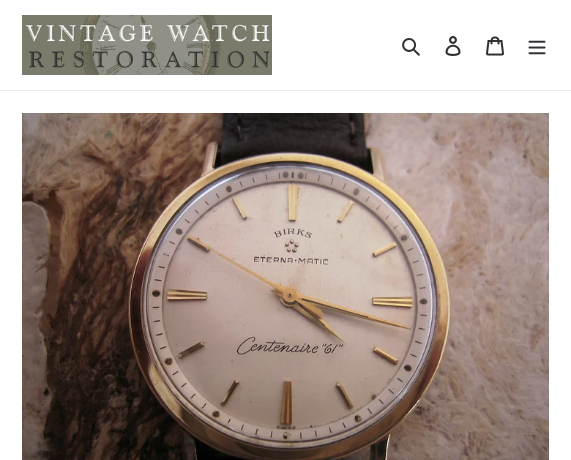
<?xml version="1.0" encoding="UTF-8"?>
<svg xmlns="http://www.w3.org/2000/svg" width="571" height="460">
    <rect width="100%" height="100%" fill="#FFFFFF"/>
    <rect x="0" y="90" width="571" height="1" fill="#EBEBEB"/>
    <image x="22" y="15" width="250" height="60" href="img_01.png"/>
    <image x="402" y="38" width="18" height="18" href="img_02.png"/>
    <image x="445" y="36" width="16" height="20" href="img_03.png"/>
    <image x="486" y="36" width="18" height="20" href="img_04.png"/>
    <image x="528" y="40" width="18" height="15" href="img_05.png"/>
    <image x="22" y="113" width="527" height="347" href="img_06.png"/>
</svg>
